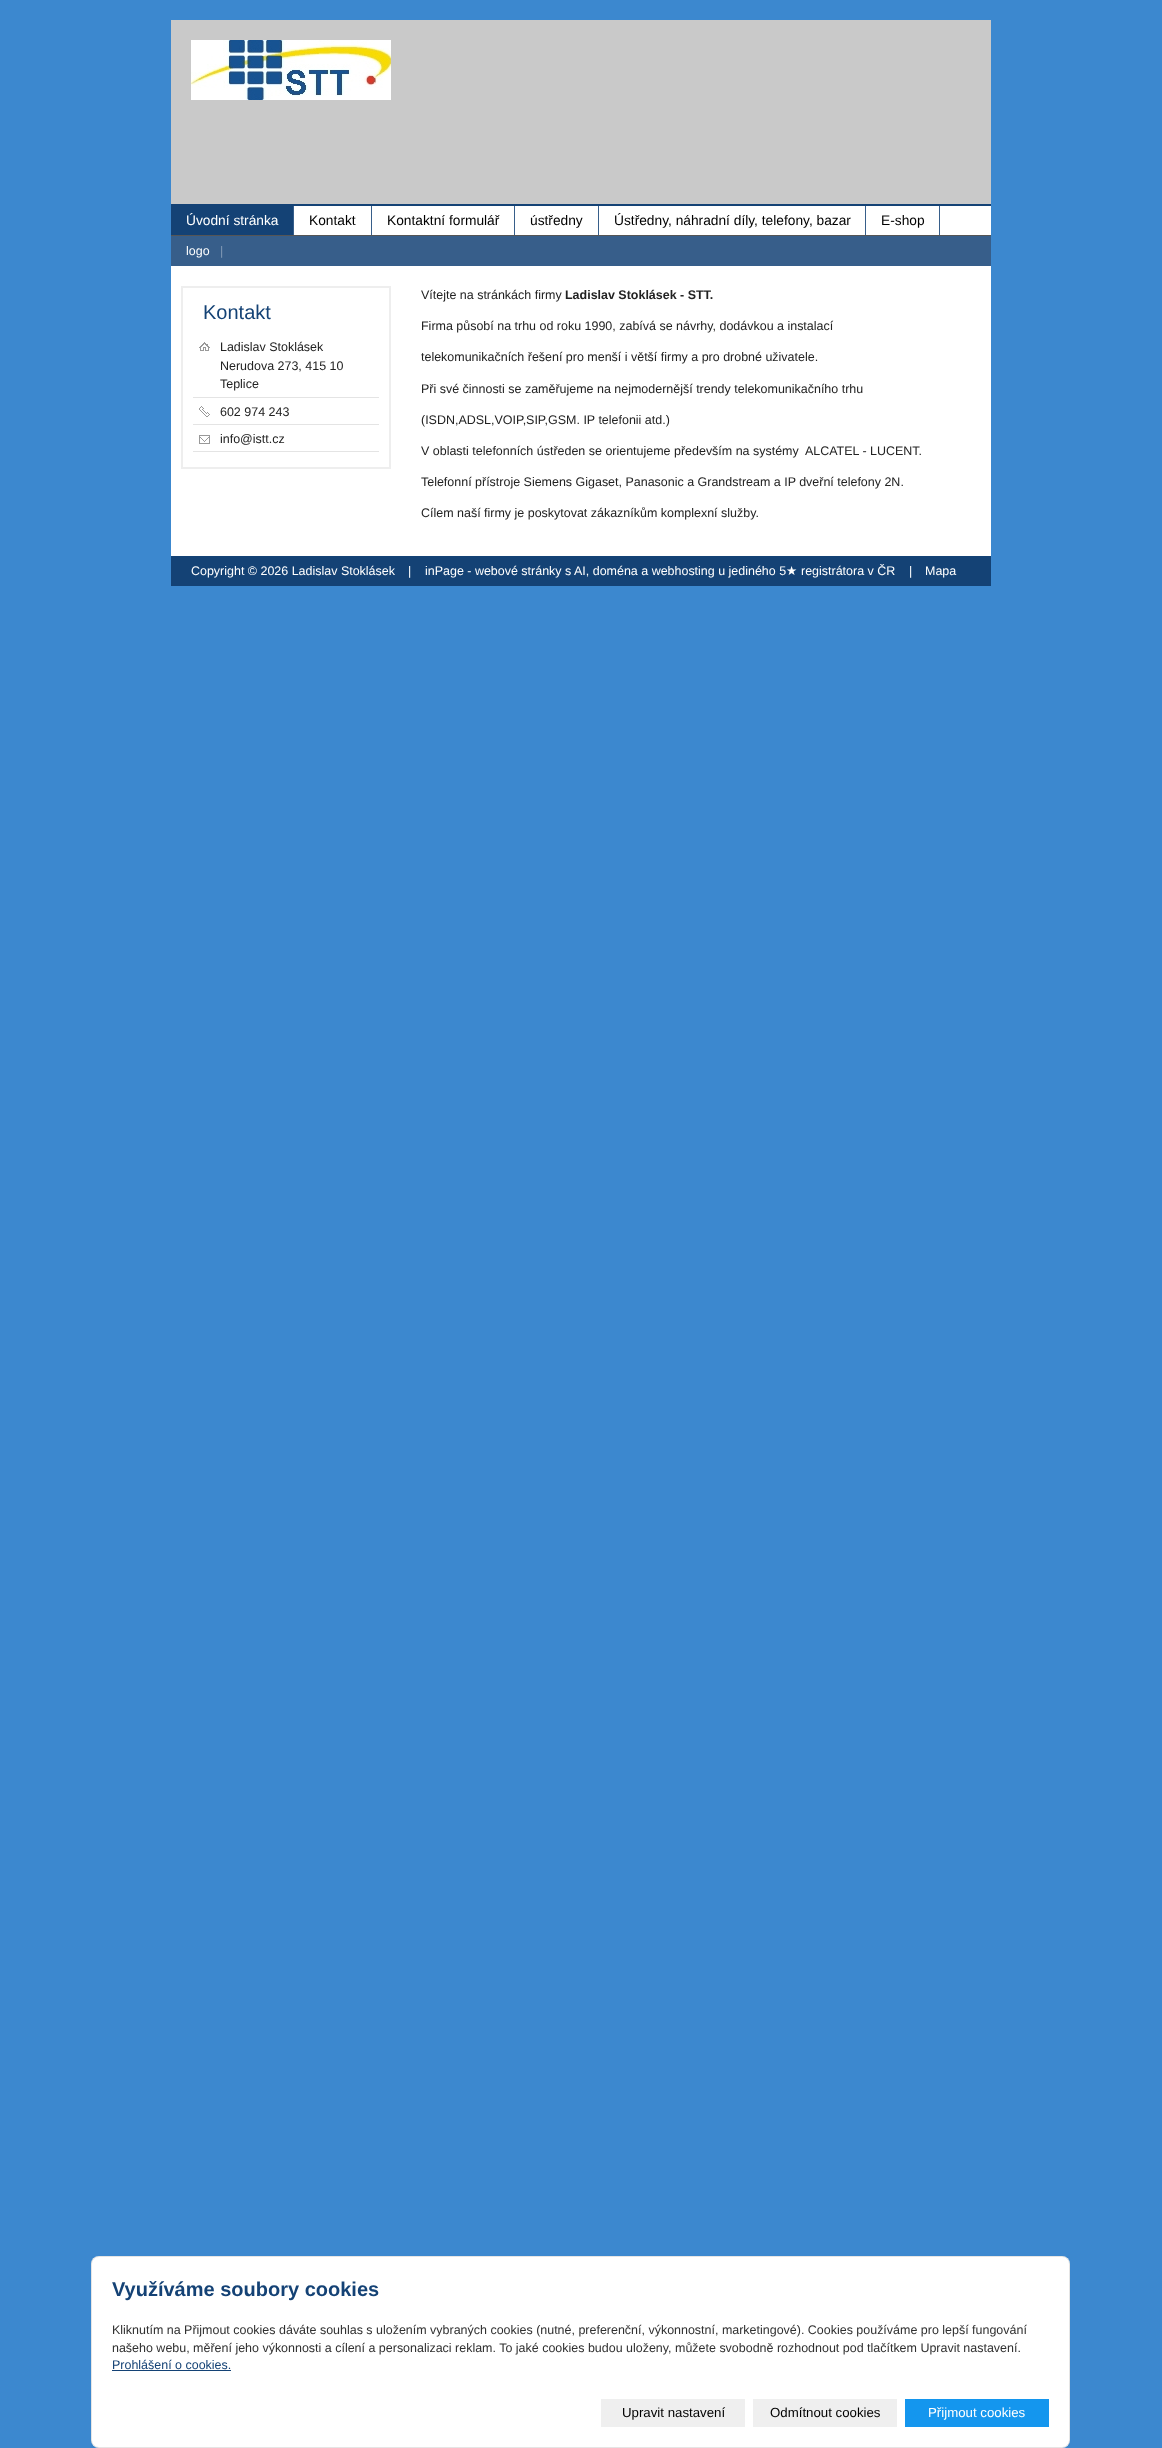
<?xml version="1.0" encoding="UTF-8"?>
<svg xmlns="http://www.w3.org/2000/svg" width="1162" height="2448">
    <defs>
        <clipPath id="clip1"><rect x="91" y="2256" width="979" height="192"/></clipPath>
        <filter id="blur1" x="-50%" y="-200%" width="200%" height="500%"><feGaussianBlur stdDeviation="10"/></filter>
    </defs>
    <rect width="100%" height="100%" fill="#3C88CF"/>
    <rect x="171" y="206" width="820" height="350" fill="#FFFFFF"/>
    <rect x="171" y="20" width="820" height="184" fill="#C9C9C9"/>
    <rect x="171" y="204" width="820" height="2" fill="#144275"/>
    <image x="191" y="40" width="200" height="60" href="img_01.png"/>
    <rect x="171" y="235" width="820" height="1" fill="#555555"/>
    <rect x="171" y="206" width="122" height="29" fill="#144275"/>
    <rect x="293" y="206" width="1" height="29" fill="#375E8A"/>
    <text x="186" y="225" font-family="Liberation Sans" font-size="13.75" fill="#FFFFFF">Úvodní stránka</text>
    <rect x="371" y="206" width="1" height="29" fill="#375E8A"/>
    <text x="309" y="225" font-family="Liberation Sans" font-size="13.75" fill="#000000">Kontakt</text>
    <rect x="514" y="206" width="1" height="29" fill="#375E8A"/>
    <text x="387" y="225" font-family="Liberation Sans" font-size="13.75" fill="#000000">Kontaktní formulář</text>
    <rect x="598" y="206" width="1" height="29" fill="#375E8A"/>
    <text x="530" y="225" font-family="Liberation Sans" font-size="13.75" fill="#000000">ústředny</text>
    <rect x="865" y="206" width="1" height="29" fill="#375E8A"/>
    <text x="614" y="225" font-family="Liberation Sans" font-size="13.75" fill="#000000">Ústředny, náhradní díly, telefony, bazar</text>
    <rect x="939" y="206" width="1" height="29" fill="#375E8A"/>
    <text x="881" y="225" font-family="Liberation Sans" font-size="13.75" fill="#000000">E-shop</text>
    <rect x="171" y="236" width="820" height="30" fill="#375E8A"/>
    <text x="186" y="255" font-family="Liberation Sans" font-size="12.48" fill="#FFFFFF">logo</text>
    <text x="220" y="255" font-family="Liberation Sans" font-size="12.48" fill="#8099B5">|</text>
    <rect x="182" y="287" width="208" height="181" fill="none" stroke="#EEEEEE" stroke-width="2"/>
    <text x="203" y="319" font-family="Liberation Sans" font-size="20" fill="#144275">Kontakt</text>
    <image x="199" y="342" width="11" height="9" href="img_02.png"/>
    <rect x="193" y="397" width="186" height="1" fill="#E4E4E4"/>
    <text font-family="Liberation Sans" font-size="12.48" fill="#222222">
        <tspan x="220" y="351">Ladislav Stoklásek</tspan>
        <tspan x="220" y="370">Nerudova 273, 415 10</tspan>
        <tspan x="220" y="388">Teplice</tspan>
    </text>
    <image x="199" y="406" width="11" height="11" href="img_03.png"/>
    <rect x="193" y="424" width="186" height="1" fill="#E4E4E4"/>
    <text x="220" y="416" font-family="Liberation Sans" font-size="12.48" fill="#222222">602 974 243</text>
    <image x="199" y="435" width="11" height="9" href="img_04.png"/>
    <rect x="193" y="451" width="186" height="1" fill="#E4E4E4"/>
    <text x="220" y="443" font-family="Liberation Sans" font-size="12.48" fill="#222222">info@istt.cz</text>
    <text x="421" y="299" font-family="Liberation Sans" font-size="12.48" fill="#222222">Vítejte na stránkách firmy</text>
    <text x="565" y="299" font-family="Liberation Sans" font-size="12.48" font-weight="700" fill="#222222">Ladislav Stoklásek - STT.</text>
    <text x="421" y="330" font-family="Liberation Sans" font-size="12.48" fill="#222222">Firma působí na trhu od roku 1990, zabívá se návrhy, dodávkou a instalací</text>
    <text x="421" y="361" font-family="Liberation Sans" font-size="12.48" fill="#222222">telekomunikačních řešení pro menší i větší firmy a pro drobné uživatele.</text>
    <text x="421" y="393" font-family="Liberation Sans" font-size="12.48" fill="#222222">Při své činnosti se zaměřujeme na nejmodernější trendy telekomunikačního trhu</text>
    <text x="421" y="424" font-family="Liberation Sans" font-size="12.48" fill="#222222">(ISDN,ADSL,VOIP,SIP,GSM. IP telefonii atd.)</text>
    <text x="421" y="455" font-family="Liberation Sans" font-size="12.48" fill="#222222" xml:space="preserve">V oblasti telefonních ústředen se orientujeme především na systémy  ALCATEL - LUCENT.</text>
    <text x="421" y="486" font-family="Liberation Sans" font-size="12.48" fill="#222222">Telefonní přístroje Siemens Gigaset, Panasonic a Grandstream a IP dveřní telefony 2N.</text>
    <text x="421" y="517" font-family="Liberation Sans" font-size="12.48" fill="#222222">Cílem naší firmy je poskytovat zákazníkům komplexní služby.</text>
    <rect x="171" y="556" width="820" height="30" fill="#144275"/>
    <text x="191" y="575" font-family="Liberation Sans" font-size="12.48" fill="#FFFFFF">Copyright © 2026 Ladislav Stoklásek</text>
    <text x="408" y="575" font-family="Liberation Sans" font-size="12.48" fill="#FFFFFF">|</text>
    <text x="425" y="575" font-family="Liberation Sans" font-size="12.48" fill="#FFFFFF">inPage - webové stránky s AI, doména a webhosting u jediného 5</text>
    <text x="786" y="575" font-family="DejaVu Sans" font-size="12.48" fill="#FFFFFF">★</text>
    <text x="801" y="575" font-family="Liberation Sans" font-size="12.48" fill="#FFFFFF">registrátora v ČR</text>
    <text x="909" y="575" font-family="Liberation Sans" font-size="12.48" fill="#FFFFFF">|</text>
    <text x="925" y="575" font-family="Liberation Sans" font-size="12.48" fill="#FFFFFF">Mapa</text>
    <g clip-path="url(#clip1)">
        <rect x="101" y="2268" width="959" height="172" fill="#000000" fill-opacity="0.5" filter="url(#blur1)"/>
    </g>
    <rect x="91" y="2256" width="979" height="192" rx="8" fill="#FFFFFF"/>
    <rect x="91.5" y="2256.5" width="978" height="191" rx="7.5" fill="none" stroke="#000000" stroke-opacity="0.1"/>
    <text x="112" y="2296" font-family="Liberation Sans" font-size="20" font-weight="700" fill="#144275">Využíváme soubory cookies</text>
    <text font-family="Liberation Sans" font-size="12.48" fill="#303030">
        <tspan x="112" y="2334">Kliknutím na Přijmout cookies dáváte souhlas s uložením vybraných cookies (nutné, preferenční, výkonnostní, marketingové). Cookies používáme pro lepší fungování</tspan>
        <tspan x="112" y="2352">našeho webu, měření jeho výkonnosti a cílení a personalizaci reklam. To jaké cookies budou uloženy, můžete svobodně rozhodnout pod tlačítkem Upravit nastavení.</tspan>
    </text>
    <text x="112" y="2369" font-family="Liberation Sans" font-size="12.48" fill="#144275">Prohlášení o cookies.</text>
    <rect x="112" y="2370" width="119" height="1" fill="#144275"/>
    <rect x="601" y="2399" width="144" height="28" fill="#EFEFEF"/>
    <text x="622" y="2417" font-family="Liberation Sans" font-size="13.25" fill="#000000">Upravit nastavení</text>
    <rect x="753" y="2399" width="144" height="28" fill="#EFEFEF"/>
    <text x="770" y="2417" font-family="Liberation Sans" font-size="13.25" fill="#000000">Odmítnout cookies</text>
    <rect x="905" y="2399" width="144" height="28" fill="#1496EE"/>
    <text x="928" y="2417" font-family="Liberation Sans" font-size="13.25" fill="#FFFFFF">Přijmout cookies</text>
</svg>
